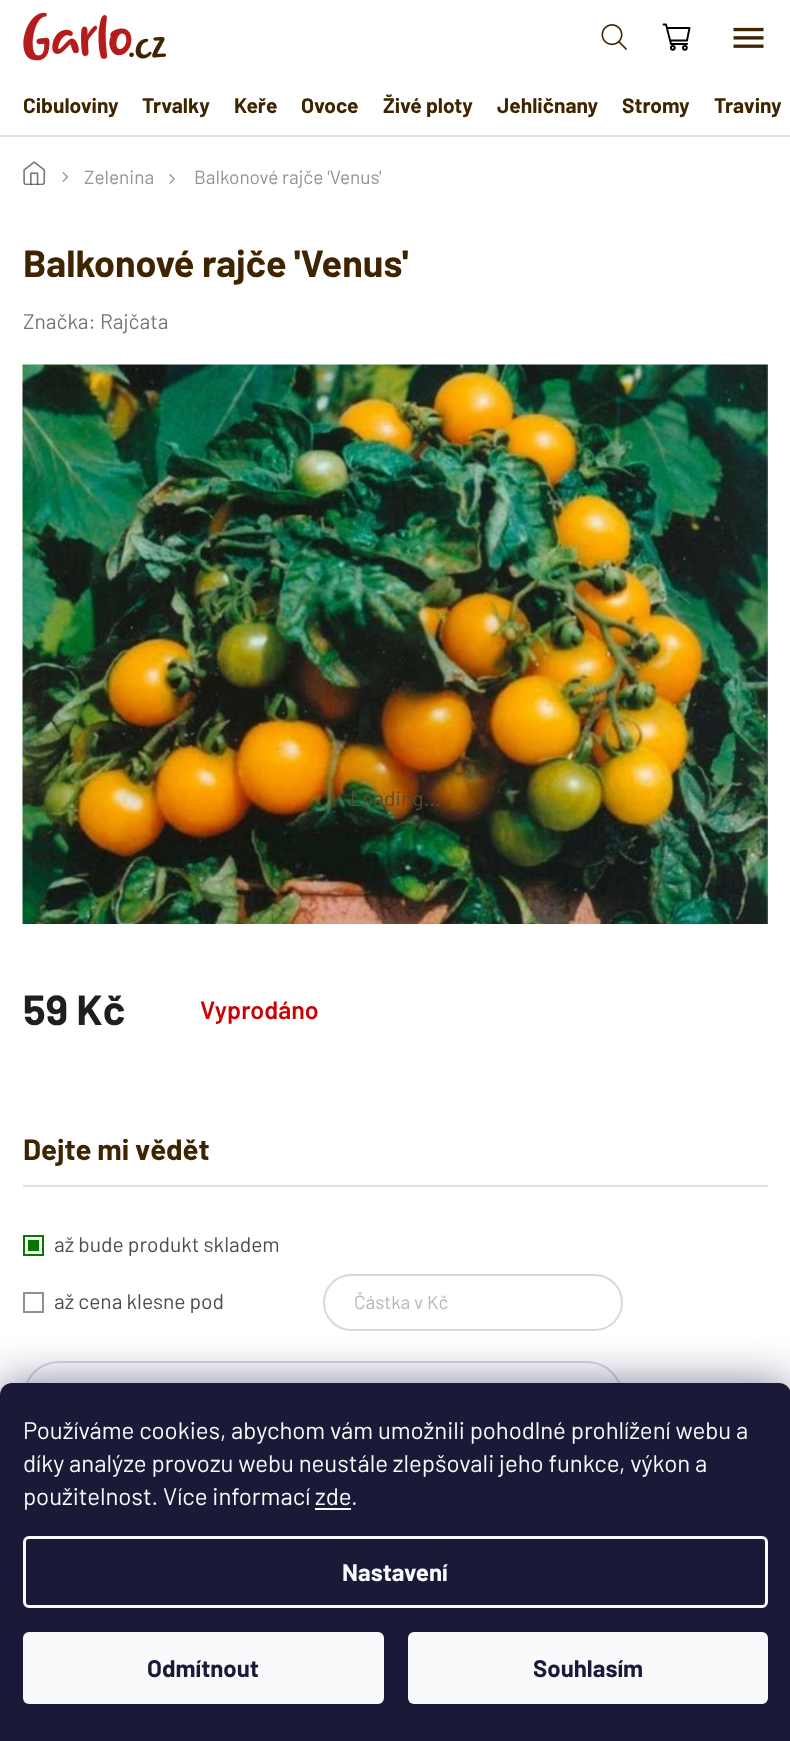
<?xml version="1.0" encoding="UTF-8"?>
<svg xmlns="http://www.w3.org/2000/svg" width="790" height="1741">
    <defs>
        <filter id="blur1" x="-50%" y="-200%" width="200%" height="500%"><feGaussianBlur stdDeviation="22.5"/></filter>
    </defs>
    <rect width="100%" height="100%" fill="#FFFFFF"/>
    <image x="23" y="12" width="143" height="49" href="img_01.png"/>
    <path d="M 667 28 H 689.5 L 687 40.5 H 670 M 687 44 H 671 L 666 24.5 H 663.5" fill="none" stroke="#000000" stroke-width="1.9" stroke-linecap="round" stroke-linejoin="round"/>
    <circle cx="684.9" cy="47.8" r="1.9" fill="none" stroke="#000000" stroke-width="1.9"/>
    <circle cx="672.8" cy="47.8" r="1.9" fill="none" stroke="#000000" stroke-width="1.9"/>
    <image x="601" y="24" width="26" height="26" href="img_02.png"/>
    <image x="733" y="27" width="31" height="21" href="img_03.png"/>
    <path d="M 0 135 V 137 H 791 V 77 H 790 V 135 Z" fill="#DFE1E2"/>
    <text x="23" y="113" font-family="Barlow" font-size="21" font-weight="700" fill="#3E2500">Cibuloviny</text>
    <text x="142" y="113" font-family="Barlow" font-size="21" font-weight="700" fill="#3E2500">Trvalky</text>
    <text x="234" y="113" font-family="Barlow" font-size="21" font-weight="700" fill="#3E2500">Keře</text>
    <text x="301" y="113" font-family="Barlow" font-size="21" font-weight="700" fill="#3E2500">Ovoce</text>
    <text x="383" y="113" font-family="Barlow" font-size="21" font-weight="700" fill="#3E2500">Živé ploty</text>
    <text x="497" y="113" font-family="Barlow" font-size="21" font-weight="700" fill="#3E2500">Jehličnany</text>
    <text x="622" y="113" font-family="Barlow" font-size="21" font-weight="700" fill="#3E2500">Stromy</text>
    <text x="714" y="113" font-family="Barlow" font-size="21" font-weight="700" fill="#3E2500">Traviny</text>
    <image x="23" y="161" width="23" height="24" href="img_04.png"/>
    <image x="62" y="172" width="6" height="10" href="img_05.png"/>
    <text x="84" y="184" font-family="Barlow" font-size="19" fill="#939393">Zelenina</text>
    <image x="169" y="174" width="6" height="10" href="img_06.png"/>
    <text x="194" y="184" font-family="Barlow" font-size="19" fill="#939393">Balkonové rajče 'Venus'</text>
    <text x="23" y="277" font-family="Barlow" font-size="37.75" font-weight="700" fill="#3E2500">Balkonové rajče 'Venus'</text>
    <text x="23" y="329" font-family="Barlow" font-size="21" fill="#767676">Značka: Rajčata</text>
    <image x="22" y="364" width="746" height="560" href="img_07.png"/>
    <text x="350" y="806" font-family="Barlow" font-size="21" fill="#544D32">Loading...</text>
    <text x="23" y="1025" font-family="Barlow" font-size="42" font-weight="700" fill="#1F1F1F">59 Kč</text>
    <text x="200" y="1019" font-family="Barlow" font-size="25" font-weight="600" fill="#CB0000">Vyprodáno</text>
    <rect x="23" y="1185" width="745" height="2" fill="#E1E1E1"/>
    <text x="23" y="1160" font-family="Barlow" font-size="29.25" font-weight="700" fill="#3E2500">Dejte mi vědět</text>
    <rect x="24" y="1236" width="19" height="19" fill="none" stroke="#027900" stroke-width="2"/>
    <text x="54" y="1252" font-family="Barlow" font-size="21" fill="#4D4D4D">až bude produkt skladem</text>
    <rect x="28" y="1240" width="11" height="11" fill="#027900"/>
    <rect x="24" y="1293" width="19" height="19" fill="none" stroke="#919191" stroke-width="2"/>
    <text x="54" y="1309" font-family="Barlow" font-size="21" fill="#4D4D4D">až cena klesne pod</text>
    <rect x="324" y="1275" width="298" height="55" rx="27.5" fill="none" stroke="#D6DADC" stroke-width="2"/>
    <text x="354" y="1309" font-family="Barlow" font-size="19" fill="#B6B6B6">Částka v Kč</text>
    <rect x="24" y="1362" width="598" height="70" rx="35" fill="none" stroke="#D6DADC" stroke-width="2"/>
    <rect x="0" y="1383" width="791" height="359" rx="12" fill="#1B1939" fill-opacity="0.5" filter="url(#blur1)"/>
    <path d="M 12 1383 H 779 C 785.5 1383 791 1388.5 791 1395 V 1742 H 0 V 1395 C 0 1388.5 5.5 1383 12 1383 Z" fill="#1A1937"/>
    <text font-family="Barlow" font-size="24" fill="#F8FAFB">
        <tspan x="23" y="1439">Používáme cookies, abychom vám umožnili pohodlné prohlížení webu a</tspan>
        <tspan x="23" y="1472">díky analýze provozu webu neustále zlepšovali jeho funkce, výkon a</tspan>
        <tspan x="23" y="1505">použitelnost. Více informací zde</tspan>
    </text>
    <text x="351" y="1505" font-family="Barlow" font-size="24" fill="#F8FAFB">.</text>
    <rect x="315" y="1508" width="36" height="2" fill="#F8FAFB"/>
    <rect x="24.5" y="1537.5" width="742" height="69" rx="4.5" fill="none" stroke="#F8FAFB" stroke-width="3"/>
    <text x="342" y="1581" font-family="Barlow" font-size="24" font-weight="700" fill="#F8FAFB">Nastavení</text>
    <rect x="23" y="1632" width="361" height="72" rx="6" fill="#F8FAFB"/>
    <text x="147" y="1677" font-family="Barlow" font-size="24" font-weight="700" fill="#1A1937">Odmítnout</text>
    <rect x="408" y="1632" width="360" height="72" rx="6" fill="#F8FAFB"/>
    <text x="533" y="1677" font-family="Barlow" font-size="24" font-weight="700" fill="#1A1937">Souhlasím</text>
</svg>
